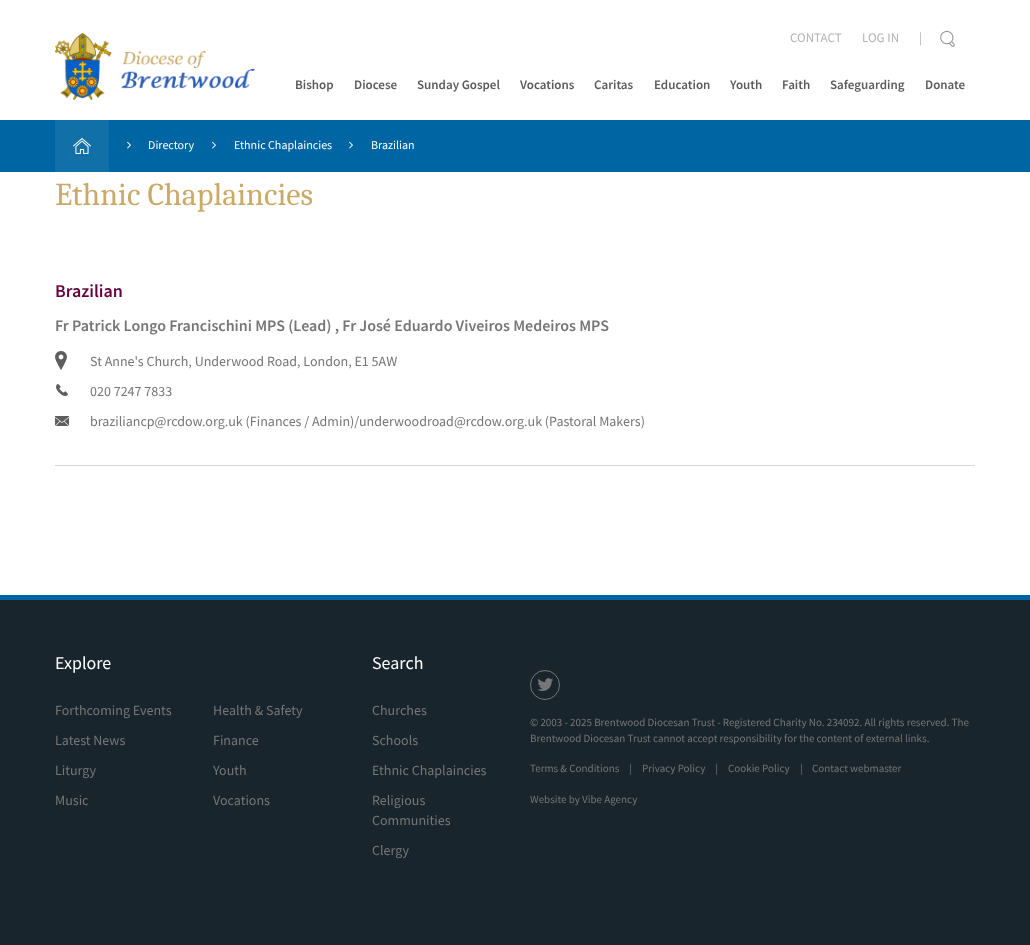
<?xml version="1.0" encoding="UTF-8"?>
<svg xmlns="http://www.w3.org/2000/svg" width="1030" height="945">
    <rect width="100%" height="100%" fill="#FFFFFF"/>
    <image x="55" y="33" width="200" height="67" href="img_01.png"/>
    <text x="790" y="42" font-family="Source Sans Pro" font-size="13" fill="#B4B4B4">CONTACT</text>
    <text x="862" y="42" font-family="Source Sans Pro" font-size="13" fill="#B4B4B4">LOG IN</text>
    <text x="919" y="42" font-family="Source Sans Pro" font-size="13" fill="#B4B4B4">|</text>
    <image x="940" y="31" width="15" height="16" href="img_02.png"/>
    <text x="295" y="89" font-family="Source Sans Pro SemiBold" font-size="13" font-weight="600" fill="#5B5B5B">Bishop</text>
    <text x="354" y="89" font-family="Source Sans Pro SemiBold" font-size="13" font-weight="600" fill="#5B5B5B">Diocese</text>
    <text x="417" y="89" font-family="Source Sans Pro SemiBold" font-size="13" font-weight="600" fill="#5B5B5B">Sunday Gospel</text>
    <text x="520" y="89" font-family="Source Sans Pro SemiBold" font-size="13" font-weight="600" fill="#5B5B5B">Vocations</text>
    <text x="594" y="89" font-family="Source Sans Pro SemiBold" font-size="13" font-weight="600" fill="#5B5B5B">Caritas</text>
    <text x="654" y="89" font-family="Source Sans Pro SemiBold" font-size="13" font-weight="600" fill="#5B5B5B">Education</text>
    <text x="730" y="89" font-family="Source Sans Pro SemiBold" font-size="13" font-weight="600" fill="#5B5B5B">Youth</text>
    <text x="782" y="89" font-family="Source Sans Pro SemiBold" font-size="13" font-weight="600" fill="#5B5B5B">Faith</text>
    <text x="830" y="89" font-family="Source Sans Pro SemiBold" font-size="13" font-weight="600" fill="#5B5B5B">Safeguarding</text>
    <text x="925" y="89" font-family="Source Sans Pro SemiBold" font-size="13" font-weight="600" fill="#5B5B5B">Donate</text>
    <rect x="0" y="120" width="1030" height="52" fill="#0065A3"/>
    <rect x="55" y="120" width="54" height="52" fill="#1270A9"/>
    <image x="73" y="138" width="18" height="16" href="img_03.png"/>
    <image x="127" y="141" width="4" height="8" href="img_04.png"/>
    <text x="148" y="149" font-family="Source Sans Pro" font-size="12" fill="#FFFFFF">Directory</text>
    <image x="212" y="141" width="4" height="8" href="img_04.png"/>
    <text x="234" y="149" font-family="Source Sans Pro" font-size="12" fill="#FFFFFF">Ethnic Chaplaincies</text>
    <image x="349" y="141" width="4" height="8" href="img_04.png"/>
    <text x="371" y="149" font-family="Source Sans Pro" font-size="12" fill="#FFFFFF">Brazilian</text>
    <text x="55" y="205" font-family="Caladea" font-size="32" fill="#CBAA68">Ethnic Chaplaincies</text>
    <rect x="55" y="465" width="920" height="1" fill="#D6D6D6"/>
    <text x="55" y="297" font-family="Source Sans Pro SemiBold" font-size="18" font-weight="600" fill="#68003E">Brazilian</text>
    <text x="55" y="331" font-family="Source Sans Pro SemiBold" font-size="16" font-weight="600" fill="#767676">Fr Patrick Longo Francischini MPS (Lead) , Fr José Eduardo Viveiros Medeiros MPS</text>
    <image x="55" y="351" width="12" height="19" href="img_05.png"/>
    <text x="90" y="366" font-family="Source Sans Pro" font-size="14" fill="#767676">St Anne's Church, Underwood Road, London, E1 5AW</text>
    <image x="56" y="384" width="12" height="12" href="img_06.png"/>
    <text x="90" y="396" font-family="Source Sans Pro" font-size="14" fill="#767676">020 7247 7833</text>
    <image x="55" y="416" width="14" height="10" href="img_07.png"/>
    <text x="90" y="426" font-family="Source Sans Pro" font-size="14" fill="#767676">braziliancp@rcdow.org.uk (Finances / Admin)/underwoodroad@rcdow.org.uk (Pastoral Makers)</text>
    <rect x="0" y="600" width="1030" height="345" fill="#19252C"/>
    <rect x="0" y="595" width="1030" height="5" fill="#0065A3"/>
    <text x="55" y="669" font-family="Source Sans Pro" font-size="18" fill="#FFFFFF">Explore</text>
    <text x="55" y="715" font-family="Source Sans Pro" font-size="14" fill="#767676">Forthcoming Events</text>
    <text x="55" y="745" font-family="Source Sans Pro" font-size="14" fill="#767676">Latest News</text>
    <text x="55" y="775" font-family="Source Sans Pro" font-size="14" fill="#767676">Liturgy</text>
    <text x="55" y="805" font-family="Source Sans Pro" font-size="14" fill="#767676">Music</text>
    <text x="213" y="715" font-family="Source Sans Pro" font-size="14" fill="#767676">Health &amp; Safety</text>
    <text x="213" y="745" font-family="Source Sans Pro" font-size="14" fill="#767676">Finance</text>
    <text x="213" y="775" font-family="Source Sans Pro" font-size="14" fill="#767676">Youth</text>
    <text x="213" y="805" font-family="Source Sans Pro" font-size="14" fill="#767676">Vocations</text>
    <text x="372" y="669" font-family="Source Sans Pro" font-size="18" fill="#FFFFFF">Search</text>
    <text x="372" y="715" font-family="Source Sans Pro" font-size="14" fill="#767676">Churches</text>
    <text x="372" y="745" font-family="Source Sans Pro" font-size="14" fill="#767676">Schools</text>
    <text x="372" y="775" font-family="Source Sans Pro" font-size="14" fill="#767676">Ethnic Chaplaincies</text>
    <text font-family="Source Sans Pro" font-size="14" fill="#767676">
        <tspan x="372" y="805">Religious</tspan>
        <tspan x="372" y="825">Communities</tspan>
    </text>
    <text x="372" y="855" font-family="Source Sans Pro" font-size="14" fill="#767676">Clergy</text>
    <circle cx="545" cy="685" r="14.5" fill="none" stroke="#767676"/>
    <image x="537" y="678" width="16" height="13" href="img_08.png"/>
    <text font-family="Source Sans Pro" font-size="11" fill="#767676">
        <tspan x="530" y="726">© 2003 - 2025 Brentwood Diocesan Trust - Registered Charity No. 234092. All rights reserved. The</tspan>
        <tspan x="530" y="742">Brentwood Diocesan Trust cannot accept responsibility for the content of external links.</tspan>
    </text>
    <text x="530" y="772" font-family="Source Sans Pro" font-size="11" fill="#767676">Terms &amp; Conditions</text>
    <text x="629" y="772" font-family="Source Sans Pro" font-size="11" fill="#767676">|</text>
    <text x="642" y="772" font-family="Source Sans Pro" font-size="11" fill="#767676">Privacy Policy</text>
    <text x="715" y="772" font-family="Source Sans Pro" font-size="11" fill="#767676">|</text>
    <text x="728" y="772" font-family="Source Sans Pro" font-size="11" fill="#767676">Cookie Policy</text>
    <text x="800" y="772" font-family="Source Sans Pro" font-size="11" fill="#767676">|</text>
    <text x="812" y="772" font-family="Source Sans Pro" font-size="11" fill="#767676">Contact webmaster</text>
    <text x="530" y="803" font-family="Source Sans Pro" font-size="11" fill="#767676">Website by Vibe Agency</text>
</svg>
